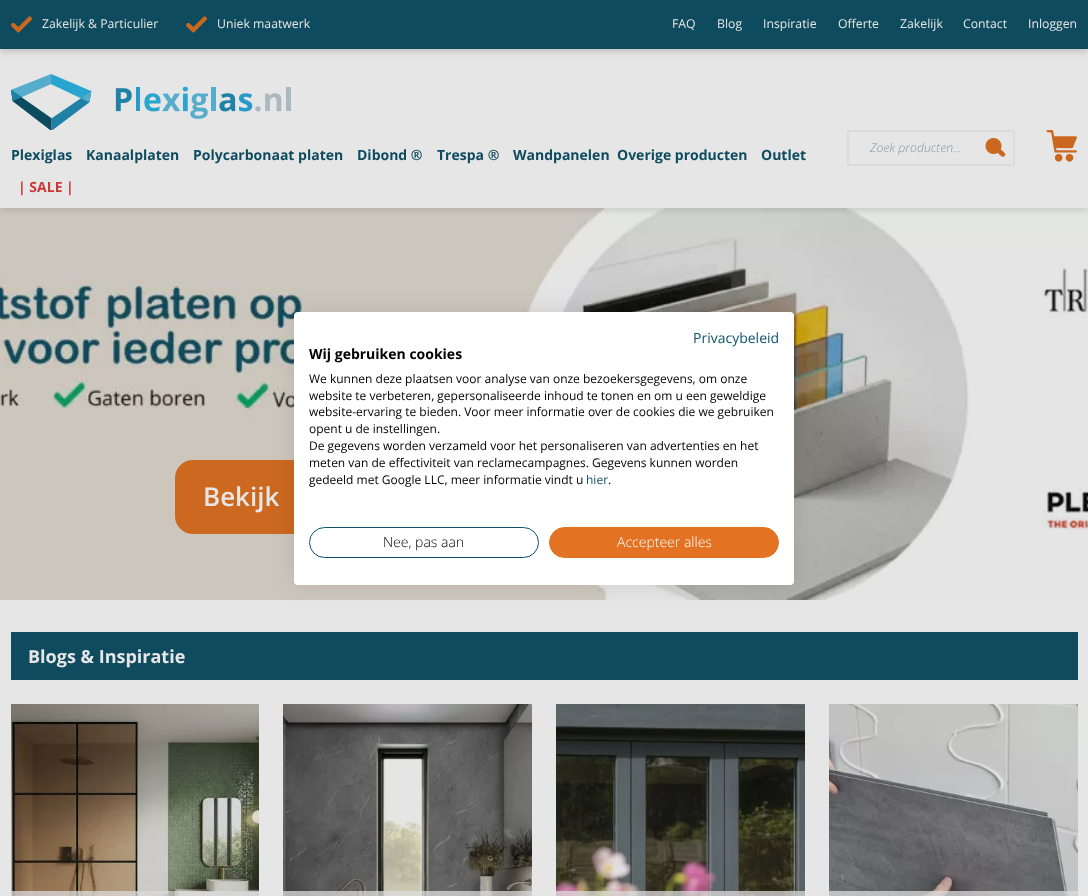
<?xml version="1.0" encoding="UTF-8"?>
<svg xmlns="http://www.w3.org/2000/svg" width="1088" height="896">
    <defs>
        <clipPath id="clip1"><rect x="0" y="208" width="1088" height="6"/></clipPath>
        <filter id="blur1" x="-50%" y="-200%" width="200%" height="500%"><feGaussianBlur stdDeviation="3"/></filter>
        <filter id="blur2" x="-50%" y="-200%" width="200%" height="500%"><feGaussianBlur stdDeviation="12"/></filter>
    </defs>
    <rect width="100%" height="100%" fill="#E6E6E6"/>
    <image x="0" y="208" width="1088" height="392" href="img_05.png"/>
    <g clip-path="url(#clip1)">
        <rect x="1" y="5" width="1086" height="206" fill="#000000" fill-opacity="0.1" filter="url(#blur1)"/>
    </g>
    <rect x="0" y="3" width="1088" height="49" fill="#000000" fill-opacity="0.16" filter="url(#blur1)"/>
    <rect x="0" y="0" width="1088" height="49" fill="#0E4B5F"/>
    <image x="11" y="16" width="21" height="17" href="img_01.png"/>
    <text x="42" y="28" font-family="Open Sans" font-size="12.25" fill="#E6E6E6">Zakelijk &amp; Particulier</text>
    <image x="186" y="16" width="21" height="17" href="img_01.png"/>
    <text x="217" y="28" font-family="Open Sans" font-size="12.25" fill="#E6E6E6">Uniek maatwerk</text>
    <text x="672" y="28" font-family="Open Sans" font-size="12.25" fill="#E6E6E6">FAQ</text>
    <text x="717" y="28" font-family="Open Sans" font-size="12.25" fill="#E6E6E6">Blog</text>
    <text x="763" y="28" font-family="Open Sans" font-size="12.25" fill="#E6E6E6">Inspiratie</text>
    <text x="838" y="28" font-family="Open Sans" font-size="12.25" fill="#E6E6E6">Offerte</text>
    <text x="900" y="28" font-family="Open Sans" font-size="12.25" fill="#E6E6E6">Zakelijk</text>
    <text x="963" y="28" font-family="Open Sans" font-size="12.25" fill="#E6E6E6">Contact</text>
    <text x="1028" y="28" font-family="Open Sans" font-size="12.25" fill="#E6E6E6">Inloggen</text>
    <image x="11" y="74" width="280" height="56" href="img_02.png"/>
    <text x="11" y="160" font-family="Open Sans" font-size="14" font-weight="700" fill="#0E4B5F">Plexiglas</text>
    <text x="86" y="160" font-family="Open Sans" font-size="14" font-weight="700" fill="#0E4B5F">Kanaalplaten</text>
    <text x="193" y="160" font-family="Open Sans" font-size="14" font-weight="700" fill="#0E4B5F">Polycarbonaat platen</text>
    <text x="357" y="160" font-family="Open Sans" font-size="14" font-weight="700" fill="#0E4B5F">Dibond ®</text>
    <text x="437" y="160" font-family="Open Sans" font-size="14" font-weight="700" fill="#0E4B5F">Trespa ®</text>
    <text x="513" y="160" font-family="Open Sans" font-size="14" font-weight="700" fill="#0E4B5F">Wandpanelen</text>
    <text x="617" y="160" font-family="Open Sans" font-size="14" font-weight="700" fill="#0E4B5F">Overige producten</text>
    <text x="761" y="160" font-family="Open Sans" font-size="14" font-weight="700" fill="#0E4B5F">Outlet</text>
    <text x="18" y="192" font-family="Open Sans" font-size="14" font-weight="700" fill="#C73A3A">| SALE |</text>
    <rect x="848" y="131" width="166" height="34" rx="1.5" fill="none" stroke="#DBDBDB" stroke-width="2"/>
    <text x="870" y="152" font-family="Open Sans" font-size="12.25" font-weight="300" font-style="italic" fill="#8C939E">Zoek producten…</text>
    <image x="985" y="138" width="21" height="19" href="img_03.png"/>
    <image x="1046" y="130" width="31" height="32" href="img_04.png"/>
    <rect x="175" y="460" width="315" height="74" rx="18" fill="#CC6820"/>
    <text x="203" y="506" font-family="Open Sans" font-size="26" font-weight="600" fill="#E6E6E6">Bekijk</text>
    <rect x="294" y="312" width="500" height="273" rx="4" fill="#000000" fill-opacity="0.1" filter="url(#blur2)"/>
    <rect x="294" y="312" width="500" height="273" rx="4" fill="#FFFFFF"/>
    <text x="693" y="343" font-family="Open Sans" font-size="14" fill="#0F536A">Privacybeleid</text>
    <text x="309" y="359" font-family="Open Sans" font-size="14" font-weight="700" fill="#000000">Wij gebruiken cookies</text>
    <text font-family="Open Sans" font-size="12" fill="#000000">
        <tspan x="309" y="383">We kunnen deze plaatsen voor analyse van onze bezoekersgegevens, om onze</tspan>
        <tspan x="309" y="400">website te verbeteren, gepersonaliseerde inhoud te tonen en om u een geweldige</tspan>
        <tspan x="309" y="416">website-ervaring te bieden. Voor meer informatie over de cookies die we gebruiken</tspan>
        <tspan x="309" y="433">opent u de instellingen.</tspan>
        <tspan x="309" y="450">De gegevens worden verzameld voor het personaliseren van advertenties en het</tspan>
        <tspan x="309" y="467">meten van de effectiviteit van reclamecampagnes. Gegevens kunnen worden</tspan>
        <tspan x="309" y="484">gedeeld met Google LLC, meer informatie vindt u</tspan>
    </text>
    <text x="586" y="484" font-family="Open Sans" font-size="12" fill="#0F536A">hier</text>
    <text x="608" y="484" font-family="Open Sans" font-size="12" fill="#000000">.</text>
    <rect x="309.5" y="527.5" width="229" height="30" rx="15" fill="none" stroke="#0F536A"/>
    <text x="383" y="547" font-family="Open Sans" font-size="14" font-weight="300" fill="#000000">Nee, pas aan</text>
    <rect x="549.5" y="527.5" width="229" height="30" rx="15" fill="#E37323" stroke="#E37323"/>
    <text x="617" y="547" font-family="Open Sans" font-size="14" font-weight="300" fill="#FFFFFF">Accepteer alles</text>
    <rect x="11" y="632" width="1067" height="48" fill="#0E4B5F"/>
    <text x="28" y="663" font-family="Open Sans" font-size="18" font-weight="700" fill="#E6E6E6">Blogs &amp; Inspiratie</text>
    <image x="11" y="704" width="248" height="192" href="img_06.png"/>
    <rect x="11" y="891" width="248" height="5" fill="#DBDBDB" fill-opacity="0.75"/>
    <image x="283" y="704" width="249" height="192" href="img_07.png"/>
    <rect x="283" y="891" width="249" height="5" fill="#DBDBDB" fill-opacity="0.75"/>
    <image x="556" y="704" width="249" height="192" href="img_08.png"/>
    <rect x="556" y="891" width="249" height="5" fill="#DBDBDB" fill-opacity="0.75"/>
    <image x="829" y="704" width="249" height="192" href="img_09.png"/>
    <rect x="829" y="891" width="249" height="5" fill="#DBDBDB" fill-opacity="0.75"/>
</svg>
